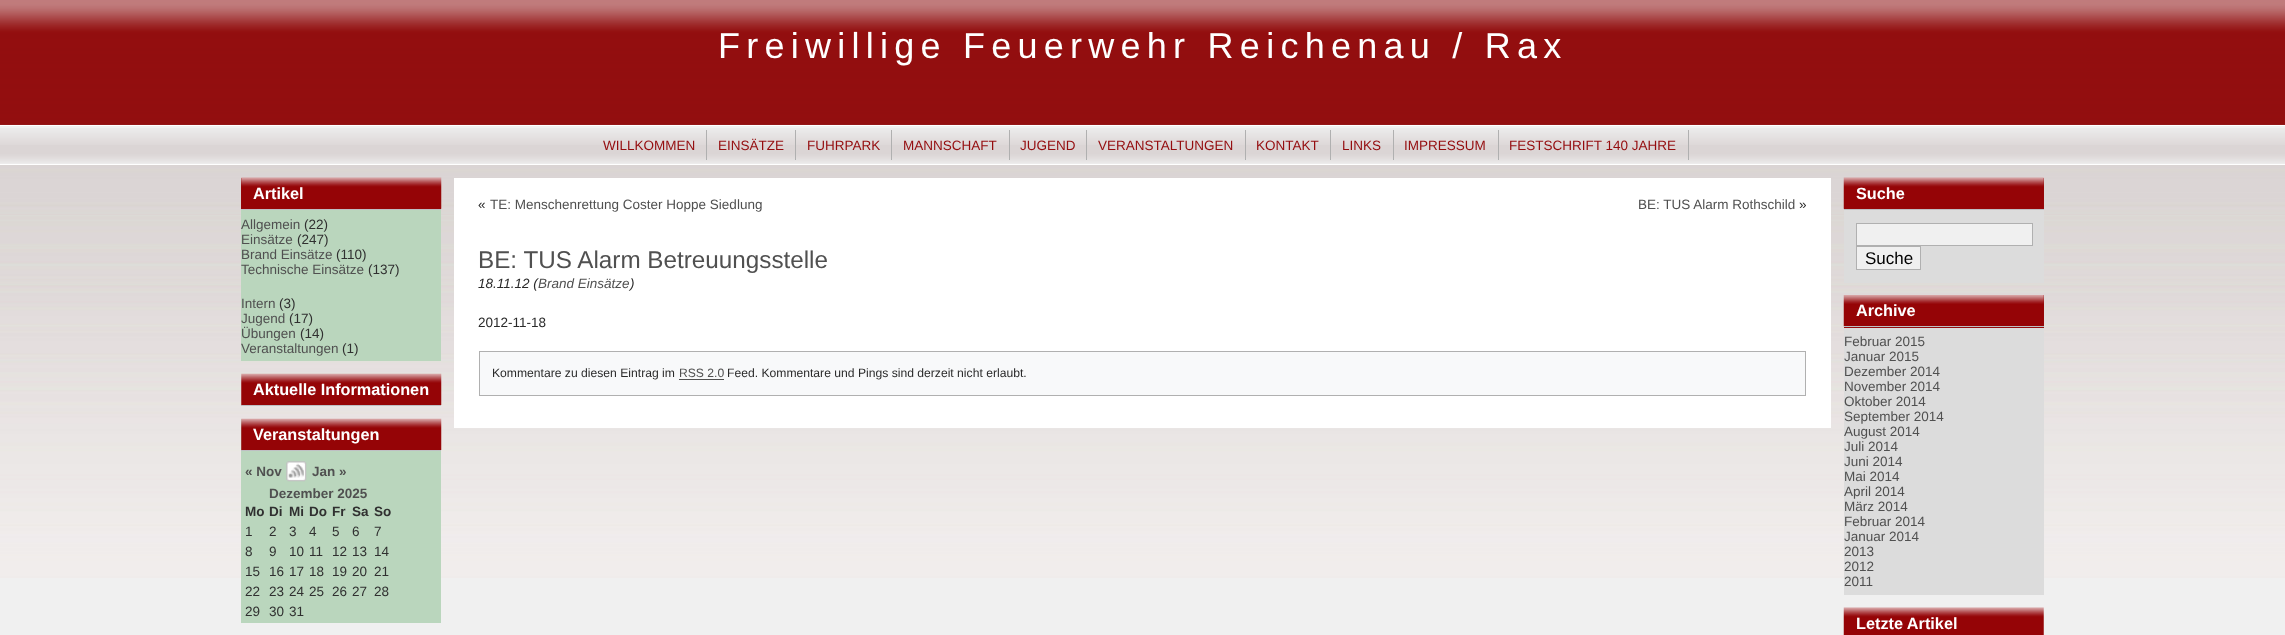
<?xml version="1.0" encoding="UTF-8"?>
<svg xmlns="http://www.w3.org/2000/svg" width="2285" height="635">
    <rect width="100%" height="100%" fill="#F0F0F0"/>
    <image x="0" y="0" width="2285" height="578" href="img_01.png"/>
    <text x="718" y="58" font-family="Liberation Sans" font-size="36" letter-spacing="6.25" fill="#FFFFFF">Freiwillige Feuerwehr Reichenau / Rax</text>
    <rect x="0" y="126" width="2285" height="38" fill="#F0F0F0"/>
    <image x="0" y="128" width="2285" height="36" href="img_02.png"/>
    <rect x="0" y="125" width="2285" height="1" fill="#FFFFFF"/>
    <rect x="0" y="164" width="2285" height="1" fill="#FFFFFF"/>
    <text x="603" y="150" font-family="Liberation Sans" font-size="13.5" fill="#940C0E">WILLKOMMEN</text>
    <rect x="706" y="130" width="1" height="30" fill="#B0B0B0"/>
    <text x="718" y="150" font-family="Liberation Sans" font-size="13.5" fill="#940C0E">EINSÄTZE</text>
    <rect x="795" y="130" width="1" height="30" fill="#B0B0B0"/>
    <text x="807" y="150" font-family="Liberation Sans" font-size="13.5" fill="#940C0E">FUHRPARK</text>
    <rect x="891" y="130" width="1" height="30" fill="#B0B0B0"/>
    <text x="903" y="150" font-family="Liberation Sans" font-size="13.5" fill="#940C0E">MANNSCHAFT</text>
    <rect x="1009" y="130" width="1" height="30" fill="#B0B0B0"/>
    <text x="1020" y="150" font-family="Liberation Sans" font-size="13.5" fill="#940C0E">JUGEND</text>
    <rect x="1086" y="130" width="1" height="30" fill="#B0B0B0"/>
    <text x="1098" y="150" font-family="Liberation Sans" font-size="13.5" fill="#940C0E">VERANSTALTUNGEN</text>
    <rect x="1245" y="130" width="1" height="30" fill="#B0B0B0"/>
    <text x="1256" y="150" font-family="Liberation Sans" font-size="13.5" fill="#940C0E">KONTAKT</text>
    <rect x="1330" y="130" width="1" height="30" fill="#B0B0B0"/>
    <text x="1342" y="150" font-family="Liberation Sans" font-size="13.5" fill="#940C0E">LINKS</text>
    <rect x="1393" y="130" width="1" height="30" fill="#B0B0B0"/>
    <text x="1404" y="150" font-family="Liberation Sans" font-size="13.5" fill="#940C0E">IMPRESSUM</text>
    <rect x="1498" y="130" width="1" height="30" fill="#B0B0B0"/>
    <text x="1509" y="150" font-family="Liberation Sans" font-size="13.5" fill="#940C0E">FESTSCHRIFT 140 JAHRE</text>
    <rect x="1688" y="130" width="1" height="30" fill="#B0B0B0"/>
    <rect x="241" y="210" width="200" height="151" fill="#BAD6BD"/>
    <rect x="241" y="178" width="200" height="31" fill="#940C0E"/>
    <image x="241" y="177" width="201" height="32" href="img_03.png"/>
    <rect x="241" y="209" width="200" height="1" fill="#BEBFC3"/>
    <text x="253" y="199" font-family="Liberation Sans" font-size="16.25" font-weight="700" fill="#FFFFFF">Artikel</text>
    <text x="241" y="229" font-family="Liberation Sans" font-size="13.5" fill="#505050">Allgemein</text>
    <text x="304" y="229" font-family="Liberation Sans" font-size="13.5" fill="#303030">(22)</text>
    <text x="241" y="244" font-family="Liberation Sans" font-size="13.5" fill="#505050">Einsätze</text>
    <text x="297" y="244" font-family="Liberation Sans" font-size="13.5" fill="#303030">(247)</text>
    <text x="241" y="259" font-family="Liberation Sans" font-size="13.5" fill="#505050">Brand Einsätze</text>
    <text x="336" y="259" font-family="Liberation Sans" font-size="13.5" fill="#303030">(110)</text>
    <text x="241" y="274" font-family="Liberation Sans" font-size="13.5" fill="#505050">Technische Einsätze</text>
    <text x="368" y="274" font-family="Liberation Sans" font-size="13.5" fill="#303030">(137)</text>
    <text x="241" y="308" font-family="Liberation Sans" font-size="13.5" fill="#505050">Intern</text>
    <text x="279" y="308" font-family="Liberation Sans" font-size="13.5" fill="#303030">(3)</text>
    <text x="241" y="323" font-family="Liberation Sans" font-size="13.5" fill="#505050">Jugend</text>
    <text x="289" y="323" font-family="Liberation Sans" font-size="13.5" fill="#303030">(17)</text>
    <text x="241" y="338" font-family="Liberation Sans" font-size="13.5" fill="#505050">Übungen</text>
    <text x="300" y="338" font-family="Liberation Sans" font-size="13.5" fill="#303030">(14)</text>
    <text x="241" y="353" font-family="Liberation Sans" font-size="13.5" fill="#505050">Veranstaltungen</text>
    <text x="342" y="353" font-family="Liberation Sans" font-size="13.5" fill="#303030">(1)</text>
    <image x="241" y="373" width="201" height="32" href="img_04.png"/>
    <rect x="241" y="405" width="200" height="1" fill="#BEBFC3"/>
    <text x="253" y="395" font-family="Liberation Sans" font-size="16.25" font-weight="700" fill="#FFFFFF">Aktuelle Informationen</text>
    <rect x="241" y="419" width="200" height="204" fill="#BAD6BD"/>
    <image x="241" y="418" width="201" height="32" href="img_05.png"/>
    <rect x="241" y="450" width="200" height="1" fill="#BEBFC3"/>
    <text x="253" y="440" font-family="Liberation Sans" font-size="16.25" font-weight="700" fill="#FFFFFF">Veranstaltungen</text>
    <text x="245" y="476" font-family="Liberation Sans" font-size="13.5" font-weight="700" fill="#505050">« Nov</text>
    <image x="286" y="461" width="21" height="21" href="img_06.png"/>
    <text x="312" y="476" font-family="Liberation Sans" font-size="13.5" font-weight="700" fill="#505050">Jan »</text>
    <text x="269" y="498" font-family="Liberation Sans" font-size="13.5" font-weight="700" fill="#505050">Dezember 2025</text>
    <text x="245" y="516" font-family="Liberation Sans" font-size="13.5" font-weight="700" fill="#303030">Mo</text>
    <text x="269" y="516" font-family="Liberation Sans" font-size="13.5" font-weight="700" fill="#303030">Di</text>
    <text x="289" y="516" font-family="Liberation Sans" font-size="13.5" font-weight="700" fill="#303030">Mi</text>
    <text x="309" y="516" font-family="Liberation Sans" font-size="13.5" font-weight="700" fill="#303030">Do</text>
    <text x="332" y="516" font-family="Liberation Sans" font-size="13.5" font-weight="700" fill="#303030">Fr</text>
    <text x="352" y="516" font-family="Liberation Sans" font-size="13.5" font-weight="700" fill="#303030">Sa</text>
    <text x="374" y="516" font-family="Liberation Sans" font-size="13.5" font-weight="700" fill="#303030">So</text>
    <text x="245" y="536" font-family="Liberation Sans" font-size="13.5" fill="#303030">1</text>
    <text x="269" y="536" font-family="Liberation Sans" font-size="13.5" fill="#303030">2</text>
    <text x="289" y="536" font-family="Liberation Sans" font-size="13.5" fill="#303030">3</text>
    <text x="309" y="536" font-family="Liberation Sans" font-size="13.5" fill="#303030">4</text>
    <text x="332" y="536" font-family="Liberation Sans" font-size="13.5" fill="#303030">5</text>
    <text x="352" y="536" font-family="Liberation Sans" font-size="13.5" fill="#303030">6</text>
    <text x="374" y="536" font-family="Liberation Sans" font-size="13.5" fill="#303030">7</text>
    <text x="245" y="556" font-family="Liberation Sans" font-size="13.5" fill="#303030">8</text>
    <text x="269" y="556" font-family="Liberation Sans" font-size="13.5" fill="#303030">9</text>
    <text x="289" y="556" font-family="Liberation Sans" font-size="13.5" fill="#303030">10</text>
    <text x="309" y="556" font-family="Liberation Sans" font-size="13.5" fill="#303030">11</text>
    <text x="332" y="556" font-family="Liberation Sans" font-size="13.5" fill="#303030">12</text>
    <text x="352" y="556" font-family="Liberation Sans" font-size="13.5" fill="#303030">13</text>
    <text x="374" y="556" font-family="Liberation Sans" font-size="13.5" fill="#303030">14</text>
    <text x="245" y="576" font-family="Liberation Sans" font-size="13.5" fill="#303030">15</text>
    <text x="269" y="576" font-family="Liberation Sans" font-size="13.5" fill="#303030">16</text>
    <text x="289" y="576" font-family="Liberation Sans" font-size="13.5" fill="#303030">17</text>
    <text x="309" y="576" font-family="Liberation Sans" font-size="13.5" fill="#303030">18</text>
    <text x="332" y="576" font-family="Liberation Sans" font-size="13.5" fill="#303030">19</text>
    <text x="352" y="576" font-family="Liberation Sans" font-size="13.5" fill="#303030">20</text>
    <text x="374" y="576" font-family="Liberation Sans" font-size="13.5" fill="#303030">21</text>
    <text x="245" y="596" font-family="Liberation Sans" font-size="13.5" fill="#303030">22</text>
    <text x="269" y="596" font-family="Liberation Sans" font-size="13.5" fill="#303030">23</text>
    <text x="289" y="596" font-family="Liberation Sans" font-size="13.5" fill="#303030">24</text>
    <text x="309" y="596" font-family="Liberation Sans" font-size="13.5" fill="#303030">25</text>
    <text x="332" y="596" font-family="Liberation Sans" font-size="13.5" fill="#303030">26</text>
    <text x="352" y="596" font-family="Liberation Sans" font-size="13.5" fill="#303030">27</text>
    <text x="374" y="596" font-family="Liberation Sans" font-size="13.5" fill="#303030">28</text>
    <text x="245" y="616" font-family="Liberation Sans" font-size="13.5" fill="#303030">29</text>
    <text x="269" y="616" font-family="Liberation Sans" font-size="13.5" fill="#303030">30</text>
    <text x="289" y="616" font-family="Liberation Sans" font-size="13.5" fill="#303030">31</text>
    <rect x="454" y="178" width="1377" height="250" fill="#FFFFFF"/>
    <text x="478" y="209" font-family="Liberation Sans" font-size="13.5" fill="#2A2A2A">«</text>
    <text x="490" y="209" font-family="Liberation Sans" font-size="13.5" fill="#505050">TE: Menschenrettung Coster Hoppe Siedlung</text>
    <text x="1638" y="209" font-family="Liberation Sans" font-size="13.5" fill="#505050">BE: TUS Alarm Rothschild</text>
    <text x="1799" y="209" font-family="Liberation Sans" font-size="13.5" fill="#2A2A2A">»</text>
    <text x="478" y="268" font-family="Liberation Sans" font-size="24.25" fill="#505050">BE: TUS Alarm Betreuungsstelle</text>
    <text x="478" y="288" font-family="Liberation Sans" font-size="13.5" font-style="italic" fill="#2A2A2A">18.11.12 (</text>
    <text x="538" y="288" font-family="Liberation Sans" font-size="13.5" font-style="italic" fill="#505050">Brand Einsätze</text>
    <text x="630" y="288" font-family="Liberation Sans" font-size="13.5" font-style="italic" fill="#2A2A2A">)</text>
    <text x="478" y="327" font-family="Liberation Sans" font-size="13.5" fill="#2A2A2A">2012-11-18</text>
    <rect x="479.5" y="351.5" width="1326" height="44" fill="#F8F9FA" stroke="#B0B0B0"/>
    <text x="492" y="377" font-family="Liberation Sans" font-size="12.15" fill="#2A2A2A">Kommentare zu diesen Eintrag im</text>
    <text x="679" y="377" font-family="Liberation Sans" font-size="12.15" fill="#505050">RSS 2.0</text>
    <rect x="679" y="379" width="45" height="1" fill="#505050"/>
    <text x="727" y="377" font-family="Liberation Sans" font-size="12.15" fill="#2A2A2A">Feed. Kommentare und Pings sind derzeit nicht erlaubt.</text>
    <rect x="1844" y="210" width="200" height="73" fill="#DCDCDC"/>
    <rect x="1844" y="178" width="200" height="31" fill="#940C0E"/>
    <image x="1843" y="177" width="201" height="32" href="img_07.png"/>
    <rect x="1844" y="209" width="200" height="1" fill="#BEBFC3"/>
    <text x="1856" y="199" font-family="Liberation Sans" font-size="16.25" font-weight="700" fill="#FFFFFF">Suche</text>
    <rect x="1856.5" y="223.5" width="176" height="22" fill="#F0F0F0" stroke="#B0B0B0"/>
    <rect x="1856.5" y="246.5" width="64" height="23" fill="#F0F0F0" stroke="#B0B0B0"/>
    <text x="1865" y="264" font-family="Liberation Sans" font-size="17" fill="#000000">Suche</text>
    <rect x="1844" y="328" width="200" height="267" fill="#DCDCDC"/>
    <rect x="1844" y="295" width="200" height="33" fill="#940C0E"/>
    <image x="1843" y="295" width="201" height="32" href="img_08.png"/>
    <rect x="1844" y="326" width="200" height="1" fill="#BEBFC3"/>
    <text x="1856" y="316" font-family="Liberation Sans" font-size="16.25" font-weight="700" fill="#FFFFFF">Archive</text>
    <text font-family="Liberation Sans" font-size="13.5" fill="#505050">
        <tspan x="1844" y="346">Februar 2015</tspan>
        <tspan x="1844" y="361">Januar 2015</tspan>
        <tspan x="1844" y="376">Dezember 2014</tspan>
        <tspan x="1844" y="391">November 2014</tspan>
        <tspan x="1844" y="406">Oktober 2014</tspan>
        <tspan x="1844" y="421">September 2014</tspan>
        <tspan x="1844" y="436">August 2014</tspan>
        <tspan x="1844" y="451">Juli 2014</tspan>
        <tspan x="1844" y="466">Juni 2014</tspan>
        <tspan x="1844" y="481">Mai 2014</tspan>
        <tspan x="1844" y="496">April 2014</tspan>
        <tspan x="1844" y="511">März 2014</tspan>
        <tspan x="1844" y="526">Februar 2014</tspan>
        <tspan x="1844" y="541">Januar 2014</tspan>
        <tspan x="1844" y="556">2013</tspan>
        <tspan x="1844" y="571">2012</tspan>
        <tspan x="1844" y="586">2011</tspan>
    </text>
    <image x="1843" y="607" width="201" height="28" href="img_09.png"/>
    <text x="1856" y="629" font-family="Liberation Sans" font-size="16.25" font-weight="700" fill="#FFFFFF">Letzte Artikel</text>
</svg>
